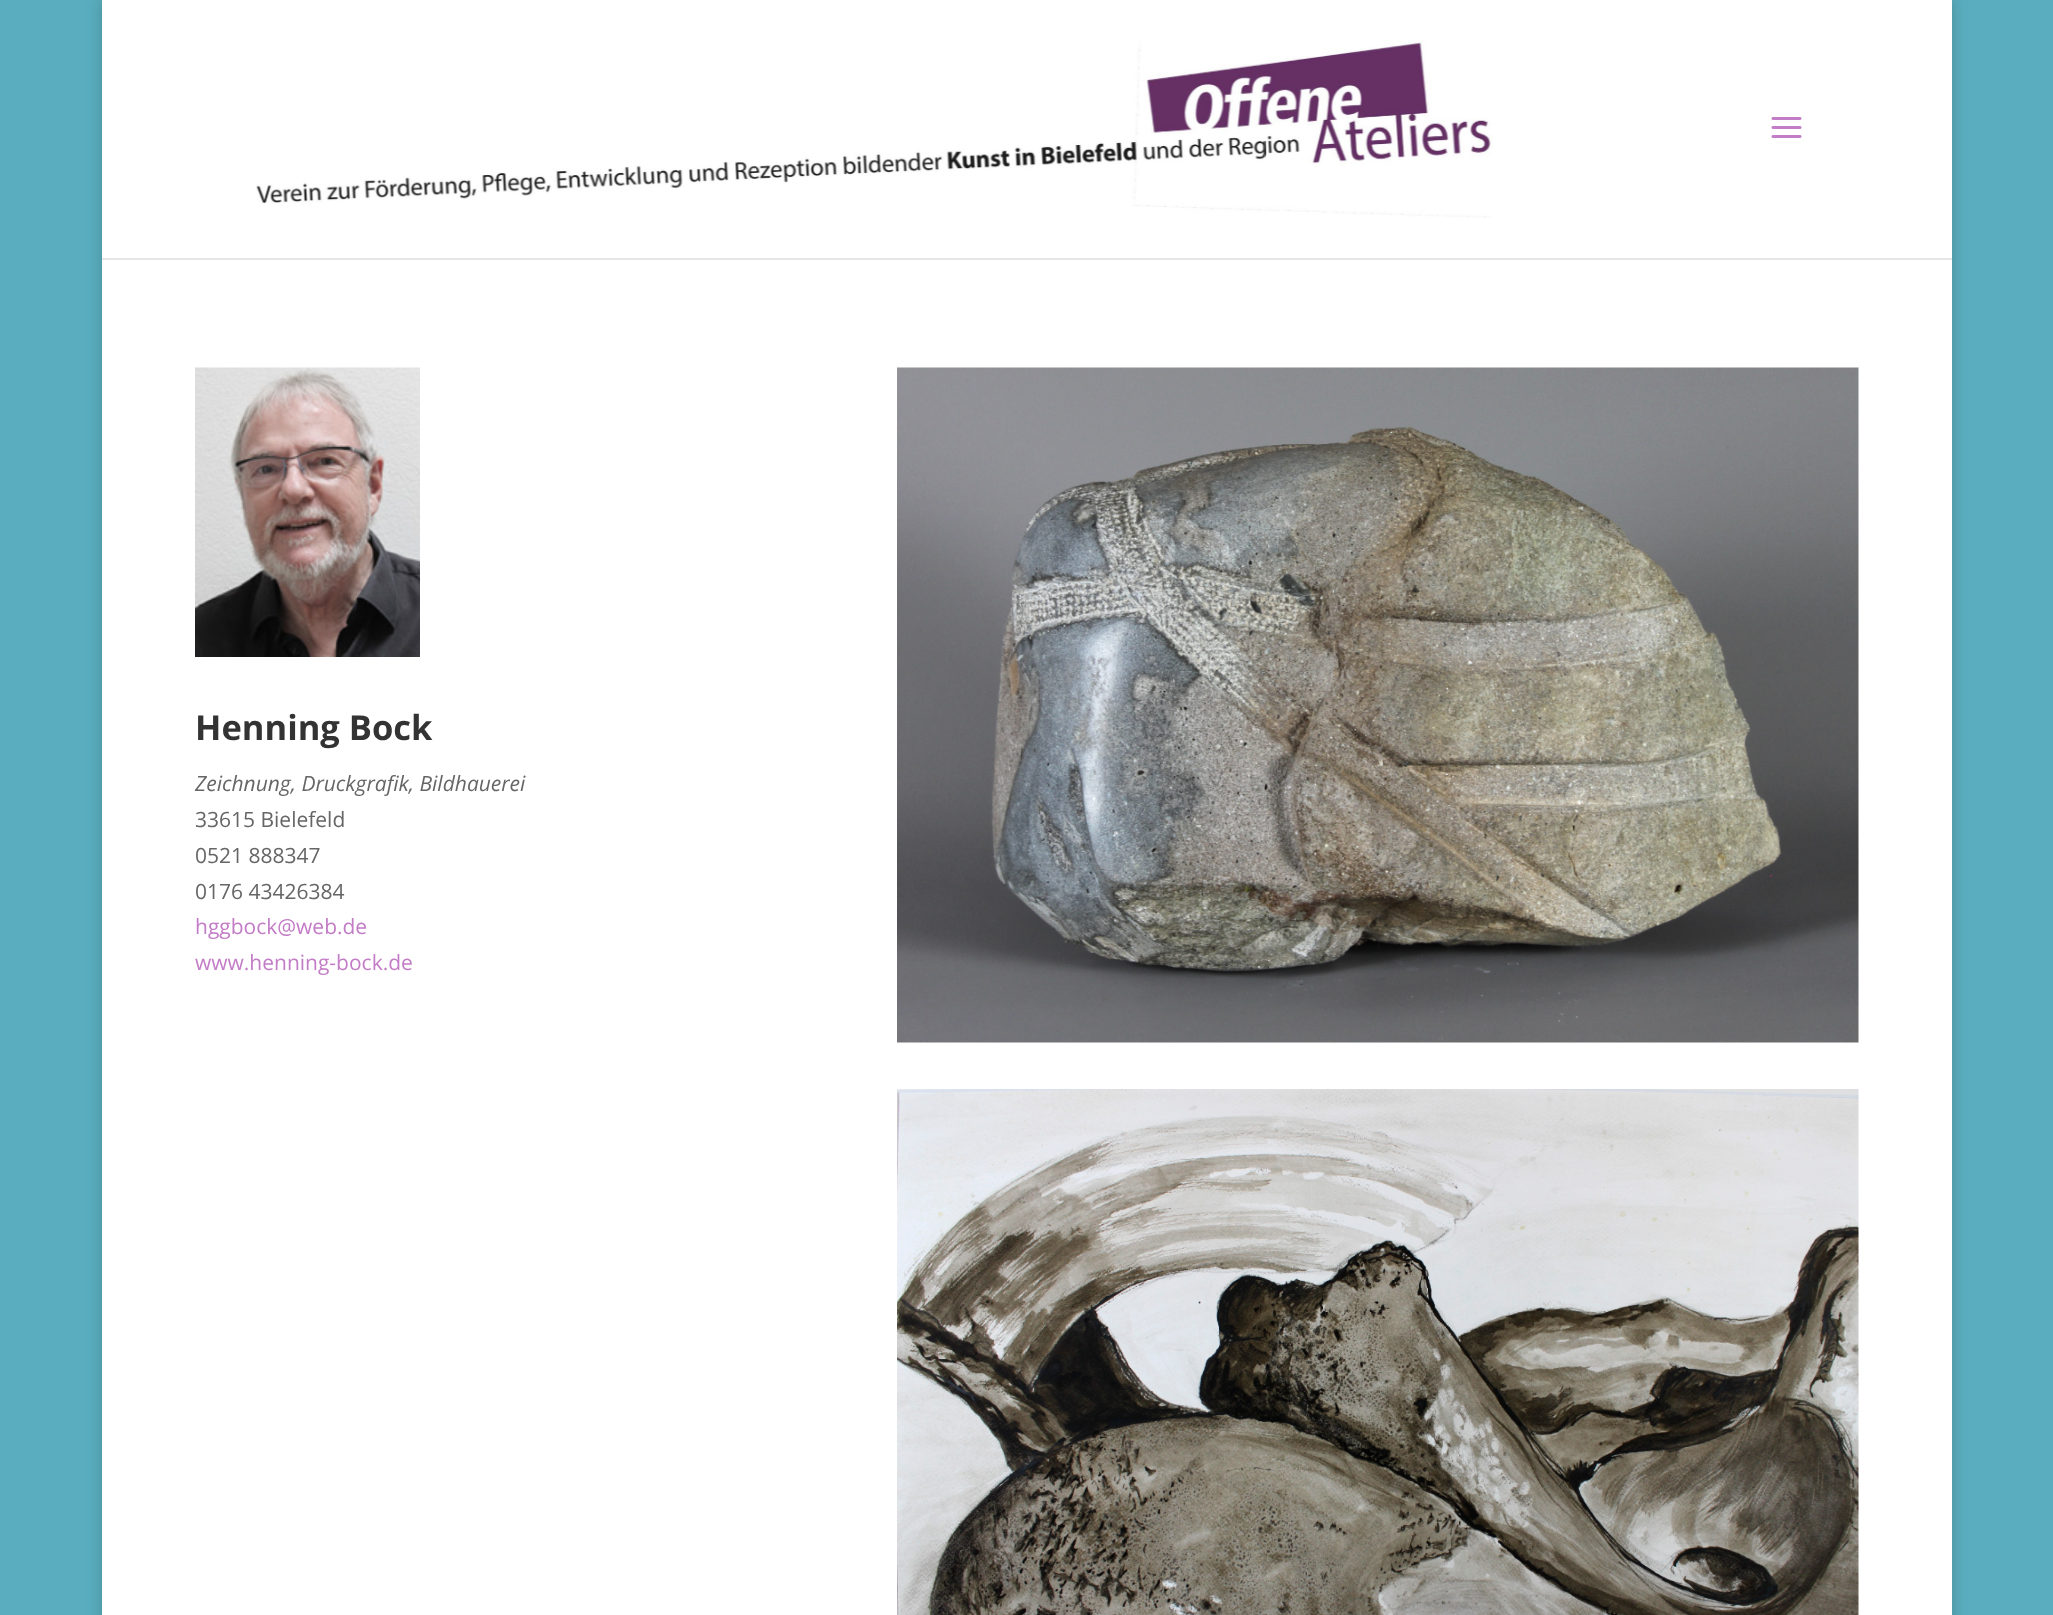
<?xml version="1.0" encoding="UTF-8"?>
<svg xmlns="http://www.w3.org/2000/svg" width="2053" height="1615">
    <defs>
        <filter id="blur1" x="-50%" y="-200%" width="200%" height="500%"><feGaussianBlur stdDeviation="7.5"/></filter>
    </defs>
    <rect width="100%" height="100%" fill="#59ADBE"/>
    <rect x="102" y="-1" width="1850" height="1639" fill="#000000" fill-opacity="0.2" filter="url(#blur1)"/>
    <path d="M 102 258 V 260 H 1952 V 2 V 258 Z" fill="#E6E6E6"/>
    <rect x="102" y="0" width="1850" height="258" fill="#FFFFFF"/>
    <image x="256" y="40" width="1237" height="178" href="img_01.png"/>
    <image x="1771" y="117" width="31" height="21" href="img_02.png"/>
    <rect x="102" y="260" width="1850" height="1355" fill="#FFFFFF"/>
    <image x="195" y="367" width="225" height="290" href="img_03.png"/>
    <text x="195" y="740" font-family="Open Sans" font-size="34.5" font-weight="700" fill="#333333">Henning Bock</text>
    <text x="195" y="791" font-family="Open Sans" font-size="21" font-style="italic" fill="#666666">Zeichnung, Druckgrafik, Bildhauerei</text>
    <text font-family="Open Sans" font-size="21" fill="#666666">
        <tspan x="195" y="827">33615 Bielefeld</tspan>
        <tspan x="195" y="863">0521 888347</tspan>
        <tspan x="195" y="899">0176 43426384</tspan>
    </text>
    <text font-family="Open Sans" font-size="21" fill="#C37CC6">
        <tspan x="195" y="934">hggbock@web.de</tspan>
        <tspan x="195" y="970">www.henning-bock.de</tspan>
    </text>
    <image x="897" y="367" width="962" height="676" href="img_04.png"/>
    <image x="897" y="1089" width="962" height="526" href="img_05.png"/>
</svg>
